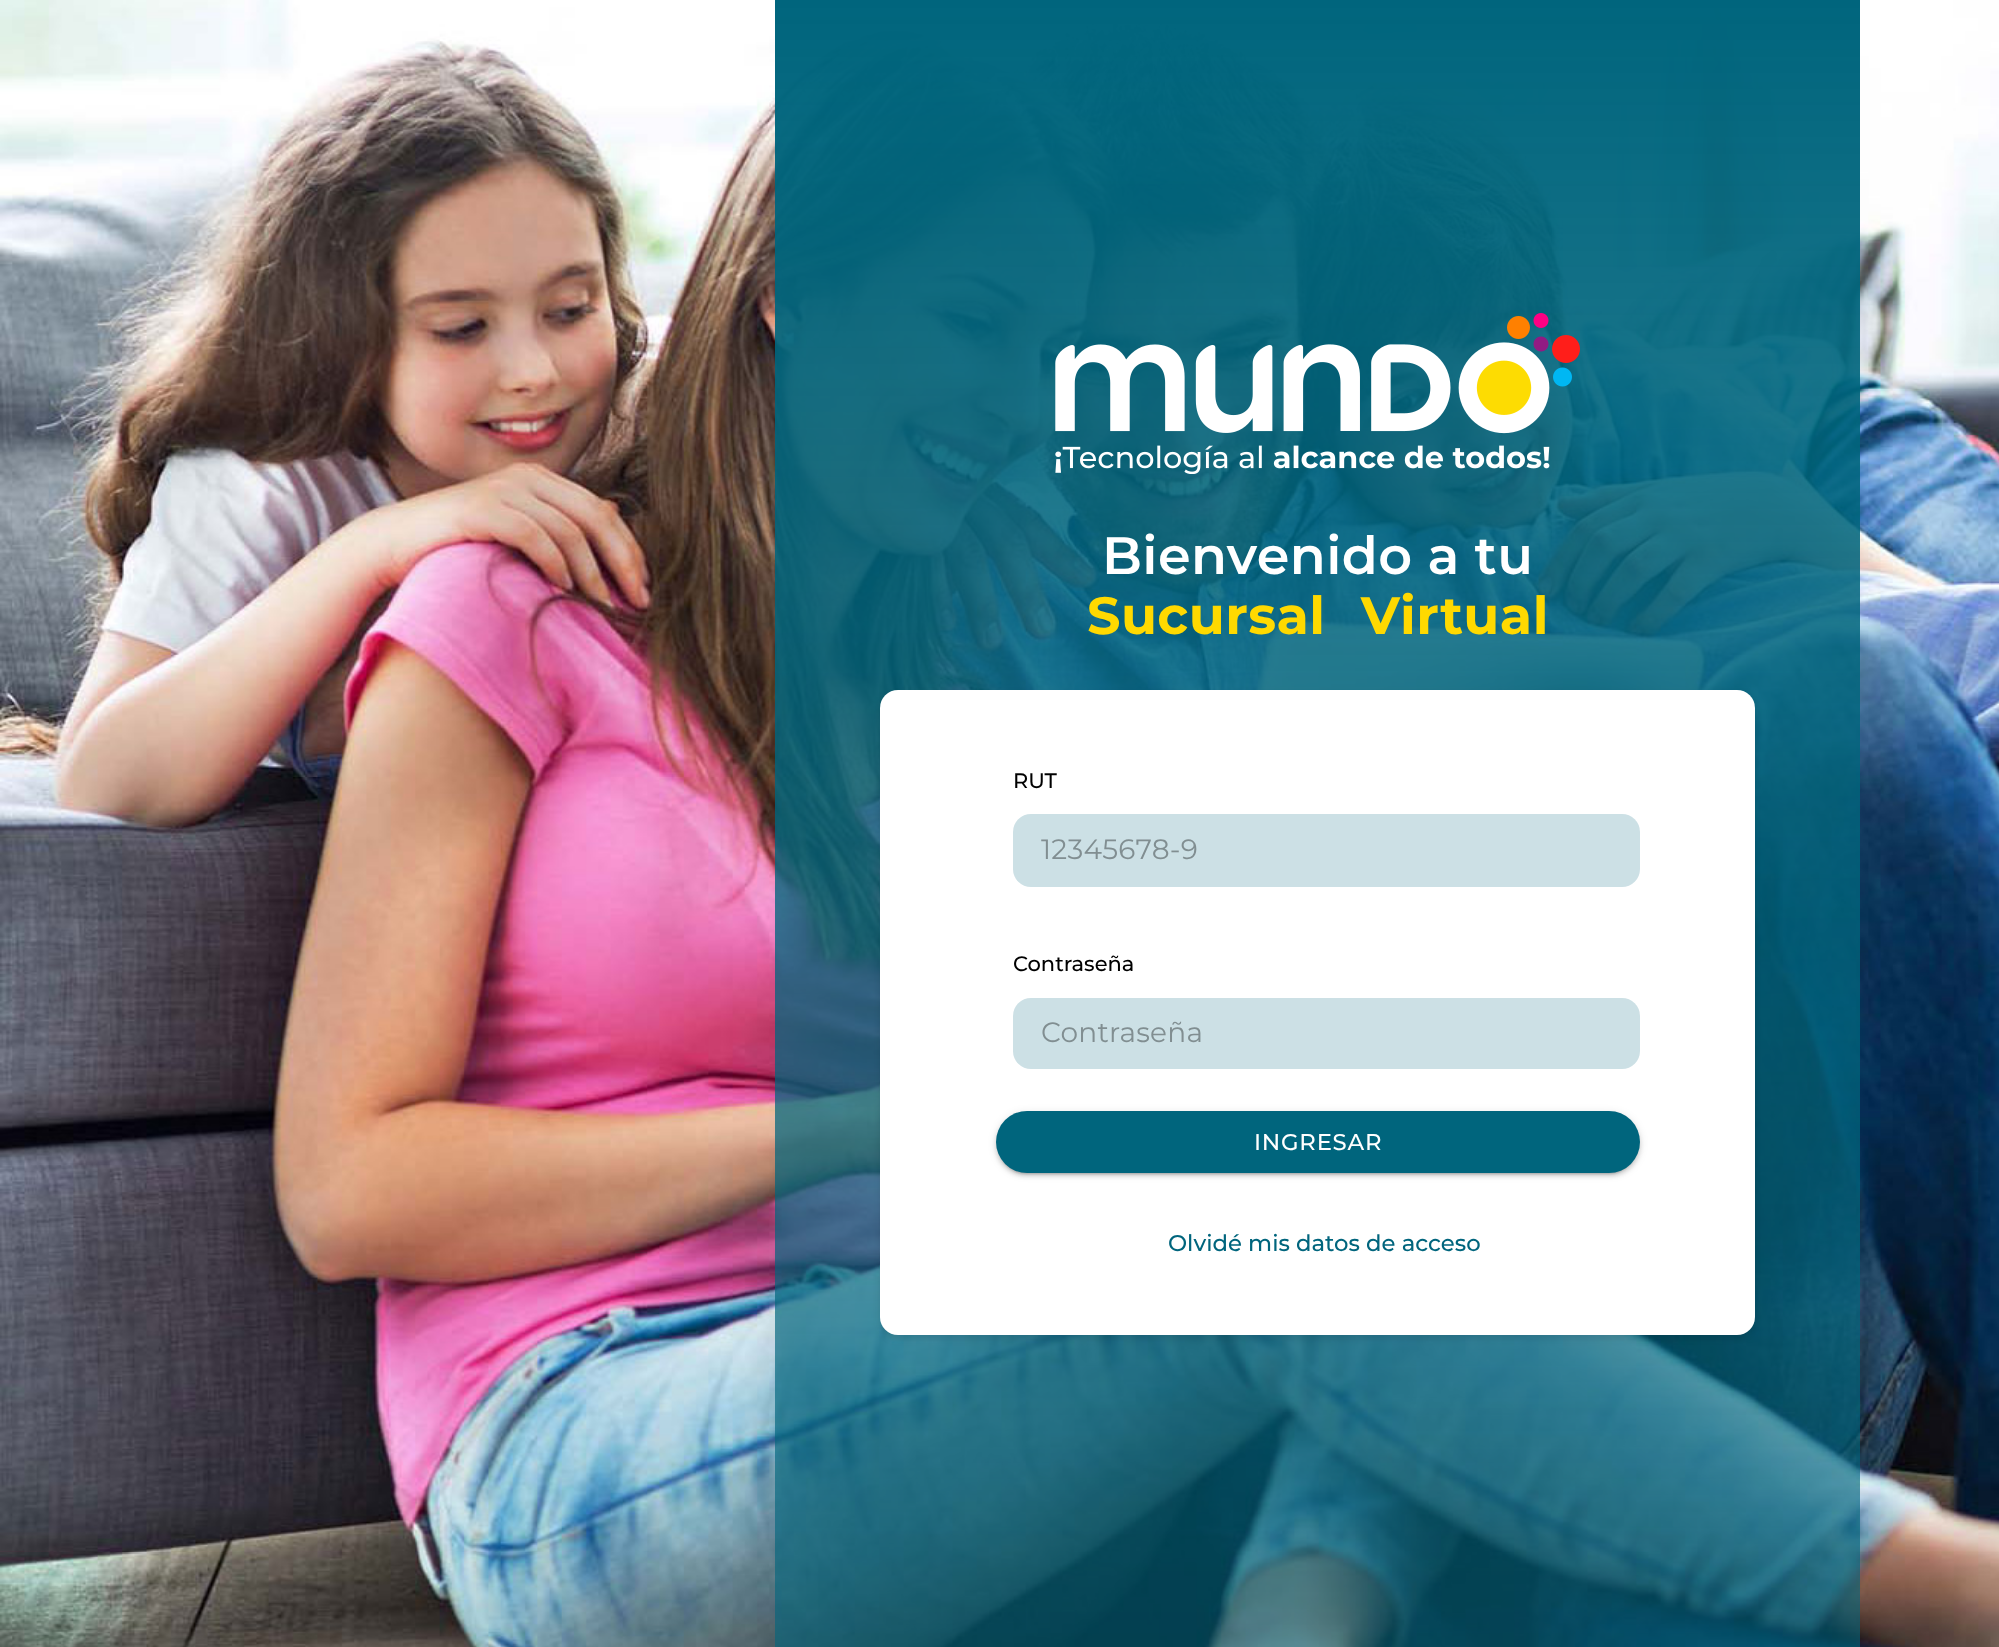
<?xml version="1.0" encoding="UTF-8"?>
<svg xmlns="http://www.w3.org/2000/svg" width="1999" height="1647">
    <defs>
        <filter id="blur1" x="-50%" y="-200%" width="200%" height="500%"><feGaussianBlur stdDeviation="3.5"/></filter>
        <filter id="blur2" x="-50%" y="-200%" width="200%" height="500%"><feGaussianBlur stdDeviation="4.5"/></filter>
        <filter id="blur3" x="-50%" y="-200%" width="200%" height="500%"><feGaussianBlur stdDeviation="2"/></filter>
        <filter id="blur4" x="-50%" y="-200%" width="200%" height="500%"><feGaussianBlur stdDeviation="1"/></filter>
    </defs>
    <rect width="100%" height="100%" fill="#FFFFFF"/>
    <image x="0" y="0" width="1999" height="1647" href="img_01.png"/>
    <image x="1055" y="313" width="525" height="161" href="img_02.png"/>
    <text x="1102" y="574" font-family="Montserrat" font-size="52.5" font-weight="600" letter-spacing="0.4" fill="#FFFFFF">Bienvenido a tu</text>
    <text x="1087" y="634" word-spacing="20" font-family="Montserrat" font-size="52.5" font-weight="700" letter-spacing="0.4" fill="#FFD900">Sucursal Virtual</text>
    <rect x="880" y="693" width="875" height="646" rx="18" fill="#000000" fill-opacity="0.1" filter="url(#blur1)"/>
    <rect x="880" y="690" width="875" height="645" rx="18" fill="#FFFFFF"/>
    <text x="1013" y="788" font-family="Montserrat" font-size="21" font-weight="500" fill="#000000">RUT</text>
    <rect x="1013" y="814" width="627" height="73" rx="18" fill="#CCE0E5"/>
    <text x="1041" y="859" font-family="Montserrat" font-size="28" letter-spacing="0.25" fill="#818E91">12345678-9</text>
    <text x="1013" y="971" font-family="Montserrat" font-size="21" font-weight="500" fill="#000000">Contraseña</text>
    <rect x="1013" y="998" width="627" height="71" rx="18" fill="#CCE0E5"/>
    <text x="1041" y="1042" font-family="Montserrat" font-size="28" letter-spacing="0.25" fill="#818E91">Contraseña</text>
    <rect x="996" y="1113" width="644" height="61" rx="30.5" fill="#000000" fill-opacity="0.12" filter="url(#blur2)"/>
    <rect x="996" y="1115" width="644" height="61" rx="30.5" fill="#000000" fill-opacity="0.14" filter="url(#blur3)"/>
    <rect x="999" y="1120" width="637" height="54" rx="27" fill="#000000" fill-opacity="0.2" filter="url(#blur4)"/>
    <rect x="996" y="1111" width="644" height="62" rx="31" fill="#00657D"/>
    <text x="1254" y="1150" font-family="Montserrat" font-size="22.75" font-weight="500" letter-spacing="0.75" fill="#FFFFFF">INGRESAR</text>
    <text x="1168" y="1251" font-family="Montserrat" font-size="22.75" font-weight="500" fill="#00657D">Olvidé mis datos de acceso</text>
</svg>
